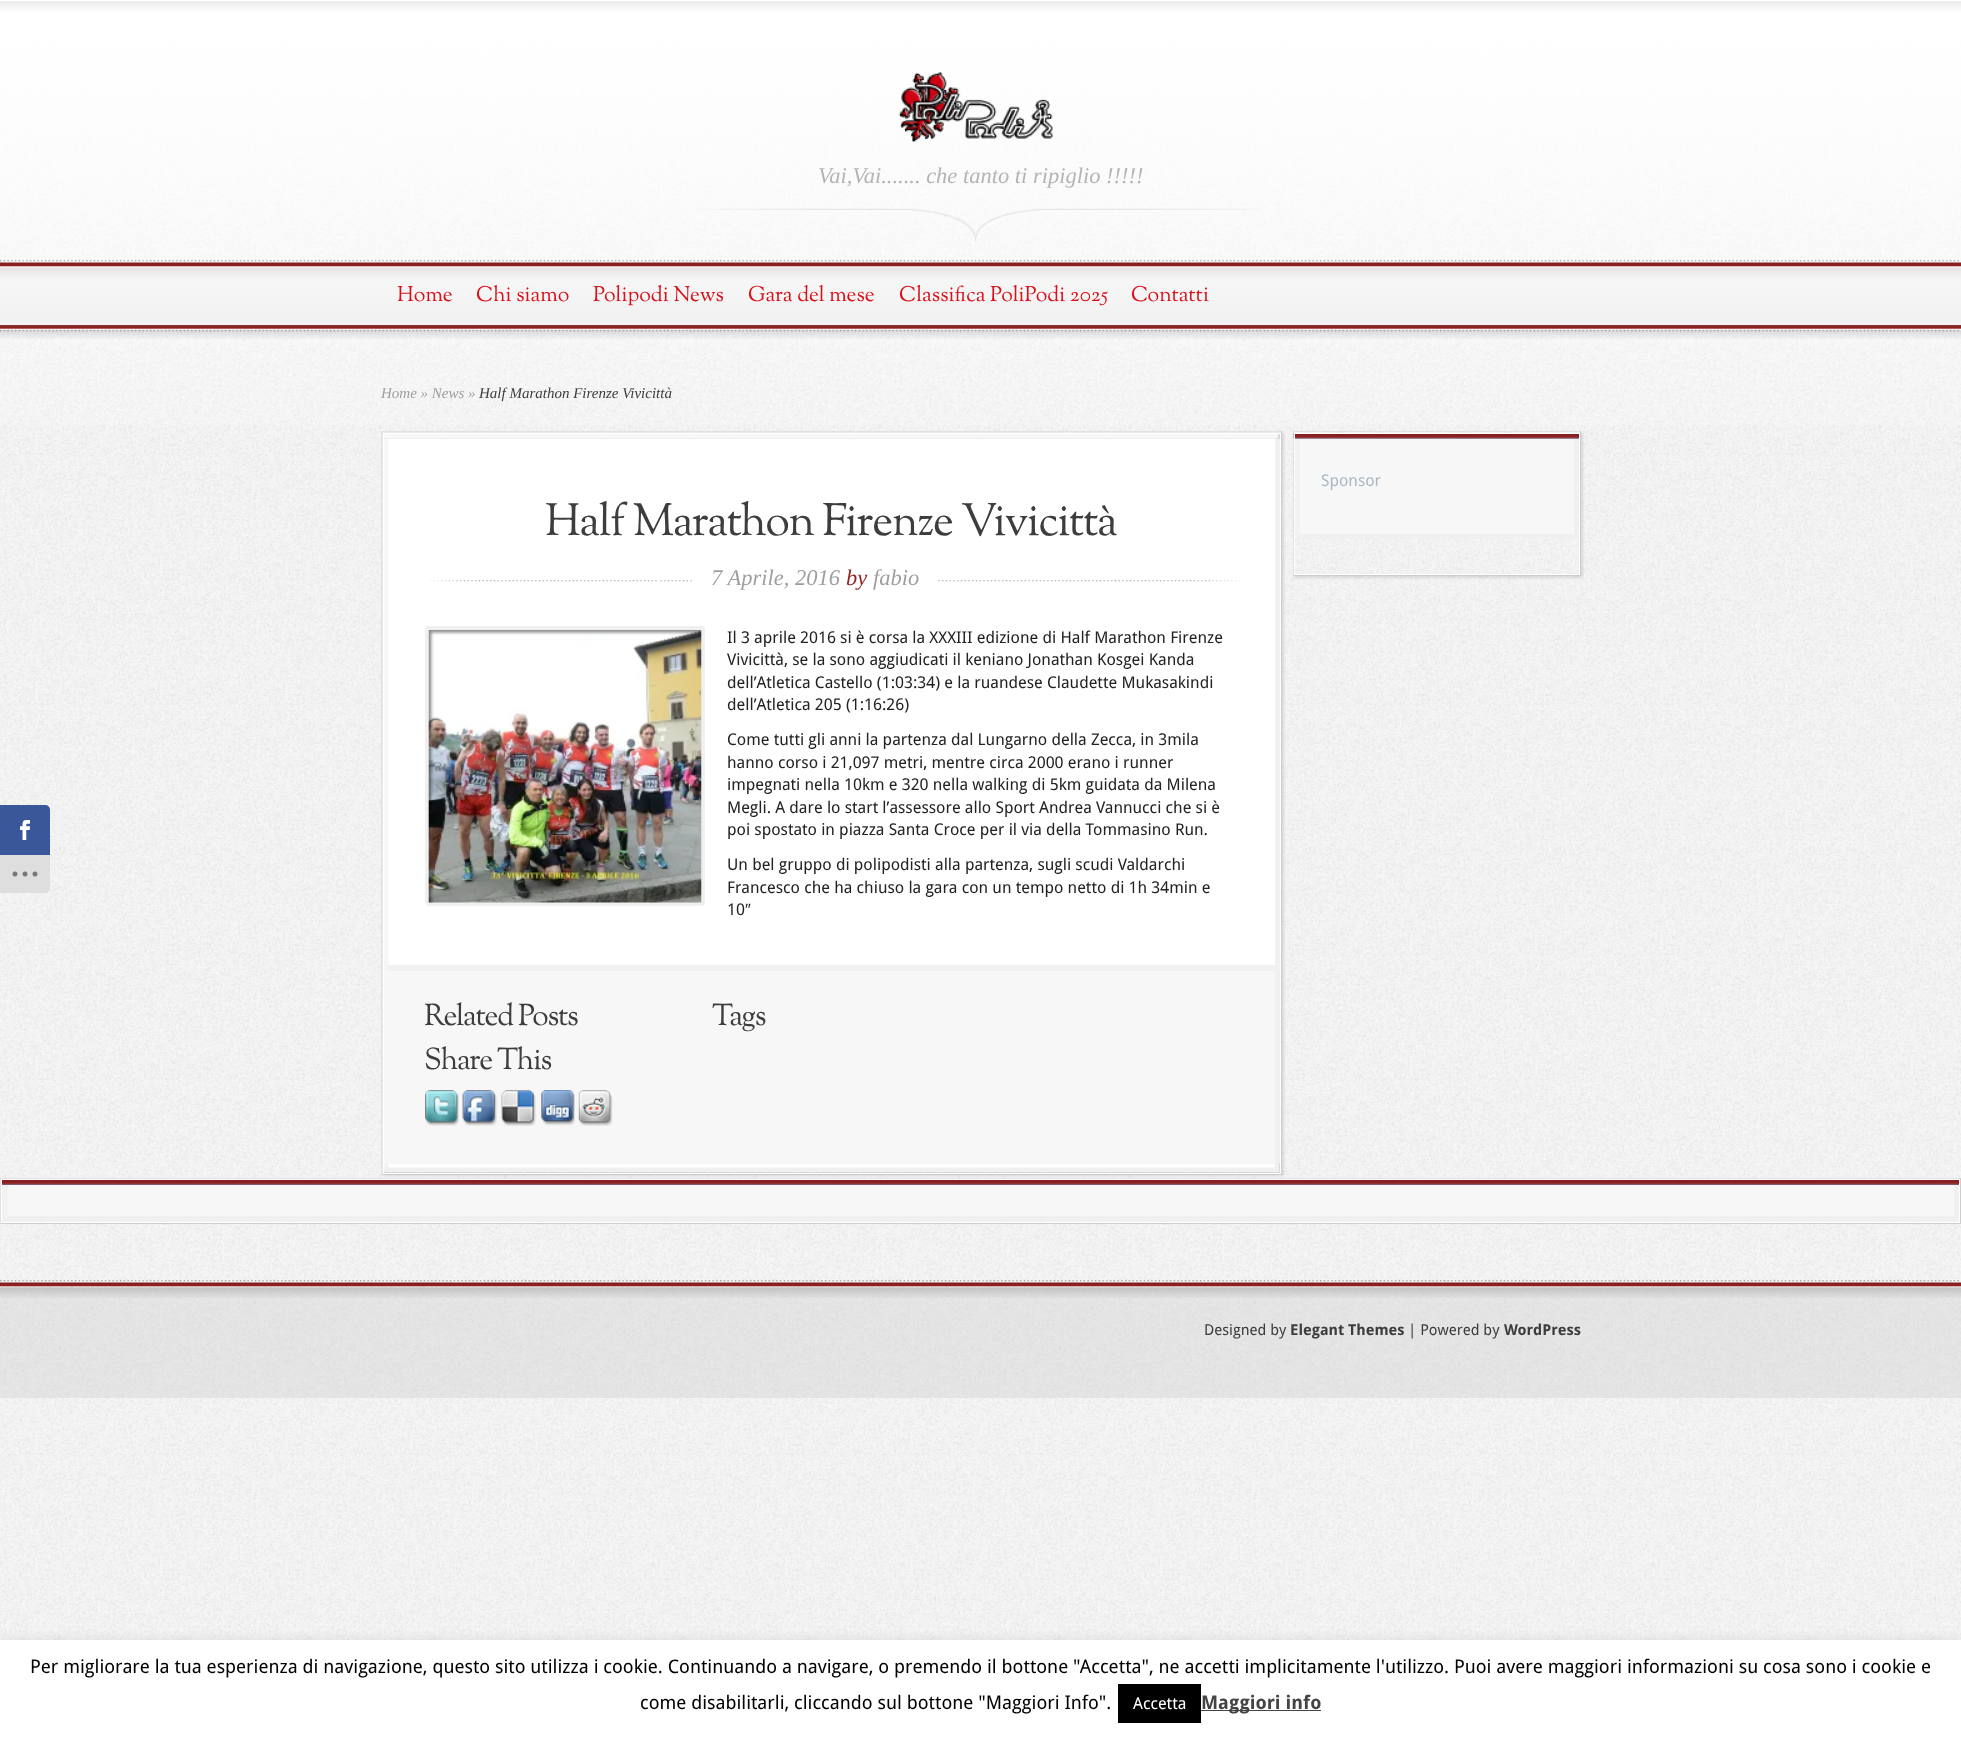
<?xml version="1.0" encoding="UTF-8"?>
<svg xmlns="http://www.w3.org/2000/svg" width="1961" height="1737">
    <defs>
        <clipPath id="clip1"><path d="M 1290 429 H 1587 V 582 H 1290 Z M 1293 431 H 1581 V 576 H 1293 Z" clip-rule="evenodd"/></clipPath>
        <filter id="blur1" x="-50%" y="-200%" width="200%" height="500%"><feGaussianBlur stdDeviation="1"/></filter>
        <filter id="blur2" x="-50%" y="-200%" width="200%" height="500%"><feGaussianBlur stdDeviation="6"/></filter>
    </defs>
    <rect width="100%" height="100%" fill="#FFFFFF"/>
    <image x="0" y="0" width="1961" height="1640" href="img_01.png"/>
    <path d="M 0 805 H 45 C 48 805 50 807 50 810 V 855 H 0 Z" fill="#3A579A"/>
    <image x="20" y="820" width="10" height="20" href="img_02.png"/>
    <path d="M 0 855 H 50 V 888 C 50 891 48 893 45 893 H 0 Z" fill="#DEDEDE"/>
    <image x="12" y="871" width="26" height="6" href="img_03.png"/>
    <image x="0" y="0" width="1961" height="425" href="img_04.png"/>
    <image x="898" y="71" width="155" height="71" href="img_05.png"/>
    <image x="697" y="208" width="564" height="34" href="img_06.png"/>
    <text x="818" y="183" font-family="Liberation Serif" font-size="22.5" font-style="italic" fill="#B4B4B4">Vai,Vai....... che tanto ti ripiglio !!!!!</text>
    <image x="0" y="260" width="1961" height="79" href="img_07.png"/>
    <text x="397" y="301" font-family="OFL Sorts Mill Goudy TT" font-size="21.25" font-weight="500" fill="#D9111B">Home</text>
    <text x="476" y="301" font-family="OFL Sorts Mill Goudy TT" font-size="21.25" font-weight="500" fill="#D9111B">Chi siamo</text>
    <text x="593" y="301" font-family="OFL Sorts Mill Goudy TT" font-size="21.25" font-weight="500" fill="#D9111B">Polipodi News</text>
    <text x="748" y="301" font-family="OFL Sorts Mill Goudy TT" font-size="21.25" font-weight="500" fill="#D9111B">Gara del mese</text>
    <text x="899" y="301" font-family="OFL Sorts Mill Goudy TT" font-size="21.25" font-weight="500" fill="#D9111B">Classifica PoliPodi 2025</text>
    <text x="1131" y="301" font-family="OFL Sorts Mill Goudy TT" font-size="21.25" font-weight="500" fill="#D9111B">Contatti</text>
    <image x="0" y="1280" width="1961" height="7" href="img_08.png"/>
    <text x="381" y="398" font-family="Liberation Serif" font-size="15" font-style="italic" fill="#9F9F9F">Home » News »</text>
    <text x="479" y="398" font-family="Liberation Serif" font-size="15" font-style="italic" fill="#3D3D3D">Half Marathon Firenze Vivicittà</text>
    <g clip-path="url(#clip1)">
        <rect x="1294" y="433" width="289" height="145" fill="#000000" fill-opacity="0.1" filter="url(#blur1)"/>
    </g>
    <rect x="1293" y="431" width="288" height="1" fill="#E1E1E1"/>
    <rect x="1580" y="431" width="1" height="145" fill="#CDCDCD"/>
    <rect x="1293" y="575" width="288" height="1" fill="#CDCDCD"/>
    <rect x="1293" y="431" width="1" height="145" fill="#E1E1E1"/>
    <image x="1293" y="433" width="286" height="6" href="img_09.png"/>
    <rect x="1294.5" y="433.5" width="285" height="141" fill="none" stroke="#FFFFFF"/>
    <rect x="1295" y="439" width="279" height="100" fill="#F7F7F7"/>
    <rect x="1574" y="439" width="5" height="100" fill="#F0F0F0"/>
    <path d="M 1579 539 H 1295 L 1300 534 H 1574 Z" fill="#F0F0F0"/>
    <path d="M 1295 539 V 439 H 1300 V 534 Z" fill="#F2F2F2"/>
    <text x="1321" y="486" font-family="Droid Sans" font-size="16.25" fill="#ABB8C3">Sponsor</text>
    <rect x="0" y="1178" width="1961" height="1" fill="#E1E1E1"/>
    <image x="2" y="1180" width="1957" height="5" href="img_21.png"/>
    <rect x="1.5" y="1179.5" width="1958" height="43" fill="none" stroke="#FFFFFF"/>
    <rect x="383" y="433" width="901" height="743" fill="#000000" fill-opacity="0.1" filter="url(#blur1)"/>
    <rect x="381" y="431" width="902" height="1" fill="#E1E1E1"/>
    <rect x="1281" y="431" width="1" height="744" fill="#CDCDCD"/>
    <rect x="381" y="1174" width="902" height="1" fill="#CDCDCD"/>
    <rect x="381" y="431" width="1" height="744" fill="#E1E1E1"/>
    <image x="384" y="434" width="894" height="5" href="img_10.png"/>
    <rect x="383.5" y="433.5" width="897" height="740" fill="none" stroke="#FFFFFF"/>
    <image x="383" y="1163" width="896" height="9" href="img_11.png"/>
    <image x="384" y="439" width="896" height="725" href="img_12.png"/>
    <text x="545" y="535" font-family="OFL Sorts Mill Goudy TT" font-size="45" font-weight="500" letter-spacing="-1.25" fill="#3D3D3D">Half Marathon Firenze Vivicittà</text>
    <image x="430" y="580" width="810" height="2" href="img_13.png"/>
    <text x="711" y="585" font-family="Liberation Serif" font-size="22.5" font-style="italic" fill="#9F9F9F">7 Aprile, 2016</text>
    <text x="846" y="585" font-family="Liberation Serif" font-size="22.5" font-style="italic" fill="#921F1F">by</text>
    <text x="873" y="585" font-family="Liberation Serif" font-size="22.5" font-style="italic" fill="#9F9F9F">fabio</text>
    <rect x="427" y="628" width="276" height="276" rx="2" fill="none" stroke="#F0F0F0" stroke-width="4"/>
    <image x="428" y="630" width="274" height="273" href="img_14.png"/>
    <image x="428" y="630" width="274" height="273" href="img_15.png"/>
    <text font-family="Droid Sans" font-size="16.25" fill="#232323">
        <tspan x="727" y="643">Il 3 aprile 2016 si è corsa la XXXIII edizione di Half Marathon Firenze</tspan>
        <tspan x="727" y="665">Vivicittà, se la sono aggiudicati il keniano Jonathan Kosgei Kanda</tspan>
        <tspan x="727" y="688">dell’Atletica Castello (1:03:34) e la ruandese Claudette Mukasakindi</tspan>
        <tspan x="727" y="710">dell’Atletica 205 (1:16:26)</tspan>
    </text>
    <text font-family="Droid Sans" font-size="16.25" fill="#232323">
        <tspan x="727" y="745">Come tutti gli anni la partenza dal Lungarno della Zecca, in 3mila</tspan>
        <tspan x="727" y="768">hanno corso i 21,097 metri, mentre circa 2000 erano i runner</tspan>
        <tspan x="727" y="790">impegnati nella 10km e 320 nella walking di 5km guidata da Milena</tspan>
        <tspan x="727" y="813">Megli. A dare lo start l’assessore allo Sport Andrea Vannucci che si è</tspan>
        <tspan x="727" y="835">poi spostato in piazza Santa Croce per il via della Tommasino Run.</tspan>
    </text>
    <text font-family="Droid Sans" font-size="16.25" fill="#232323">
        <tspan x="727" y="870">Un bel gruppo di polipodisti alla partenza, sugli scudi Valdarchi</tspan>
        <tspan x="727" y="893">Francesco che ha chiuso la gara con un tempo netto di 1h 34min e</tspan>
        <tspan x="727" y="915">10</tspan>
    </text>
    <text x="745" y="915" font-family="Liberation Sans" font-size="16.25" fill="#232323">″</text>
    <rect x="388" y="971" width="887" height="193" fill="#F7F7F7"/>
    <rect x="387" y="965" width="888" height="6" fill="#F1F1F1"/>
    <text x="424" y="1025" font-family="OFL Sorts Mill Goudy TT" font-size="30" font-weight="500" letter-spacing="-1.25" fill="#3D3D3D">Related Posts</text>
    <text x="712" y="1025" font-family="OFL Sorts Mill Goudy TT" font-size="30" font-weight="500" letter-spacing="-1.25" fill="#3D3D3D">Tags</text>
    <text x="424" y="1069" font-family="OFL Sorts Mill Goudy TT" font-size="30" font-weight="500" letter-spacing="-1.25" fill="#3D3D3D">Share This</text>
    <image x="425" y="1090" width="34" height="36" href="img_16.png"/>
    <image x="462" y="1090" width="35" height="36" href="img_17.png"/>
    <image x="501" y="1090" width="35" height="36" href="img_18.png"/>
    <image x="541" y="1090" width="34" height="36" href="img_19.png"/>
    <image x="578" y="1090" width="35" height="36" href="img_20.png"/>
    <rect x="1960" y="1178" width="1" height="46" fill="#CDCDCD"/>
    <rect x="0" y="1223" width="1961" height="1" fill="#CDCDCD"/>
    <rect x="0" y="1178" width="1" height="46" fill="#E1E1E1"/>
    <rect x="3" y="1185" width="1951" height="36" fill="#F7F7F7"/>
    <rect x="1954" y="1185" width="5" height="36" fill="#F0F0F0"/>
    <path d="M 1959 1221 H 2 L 8 1216 H 1954 Z" fill="#F0F0F0"/>
    <path d="M 2.5 1221 V 1185 H 7.5 V 1216 Z" fill="#F2F2F2"/>
    <rect x="0" y="1287" width="1961" height="111" fill="#CFCFCF" fill-opacity="0.4"/>
    <image x="0" y="1287" width="1961" height="11" href="img_22.png"/>
    <text x="1204" y="1335" font-family="Droid Sans" font-size="15" fill="#3D3D3D">Designed by</text>
    <text x="1290" y="1335" font-family="Droid Sans" font-size="15" font-weight="700" fill="#3D3D3D">Elegant Themes</text>
    <text x="1408" y="1335" font-family="Droid Sans" font-size="15" fill="#3D3D3D">| Powered by</text>
    <text x="1504" y="1335" font-family="Droid Sans" font-size="15" font-weight="700" fill="#3D3D3D">WordPress</text>
    <rect x="0" y="1639" width="1961" height="97" fill="#ACABAB" fill-opacity="0.3" filter="url(#blur2)"/>
    <rect x="0" y="1640" width="1961" height="97" fill="#FFFFFF"/>
    <text x="30" y="1673" font-family="Droid Sans" font-size="18.75" fill="#000000">Per migliorare la tua esperienza di navigazione, questo sito utilizza i cookie. Continuando a navigare, o premendo il bottone "Accetta", ne accetti implicitamente l'utilizzo. Puoi avere maggiori informazioni su cosa sono i cookie e</text>
    <text x="640" y="1709" font-family="Droid Sans" font-size="18.75" fill="#000000">come disabilitarli, cliccando sul bottone "Maggiori Info".</text>
    <rect x="1118" y="1684" width="83" height="39" fill="#000000"/>
    <text x="1133" y="1709" font-family="Droid Sans" font-size="16.25" fill="#FFFFFF">Accetta</text>
    <rect x="1201" y="1710" width="120" height="1" fill="#444444"/>
    <text x="1201" y="1709" font-family="Droid Sans" font-size="18.75" font-weight="700" fill="#444444">Maggiori info</text>
</svg>
